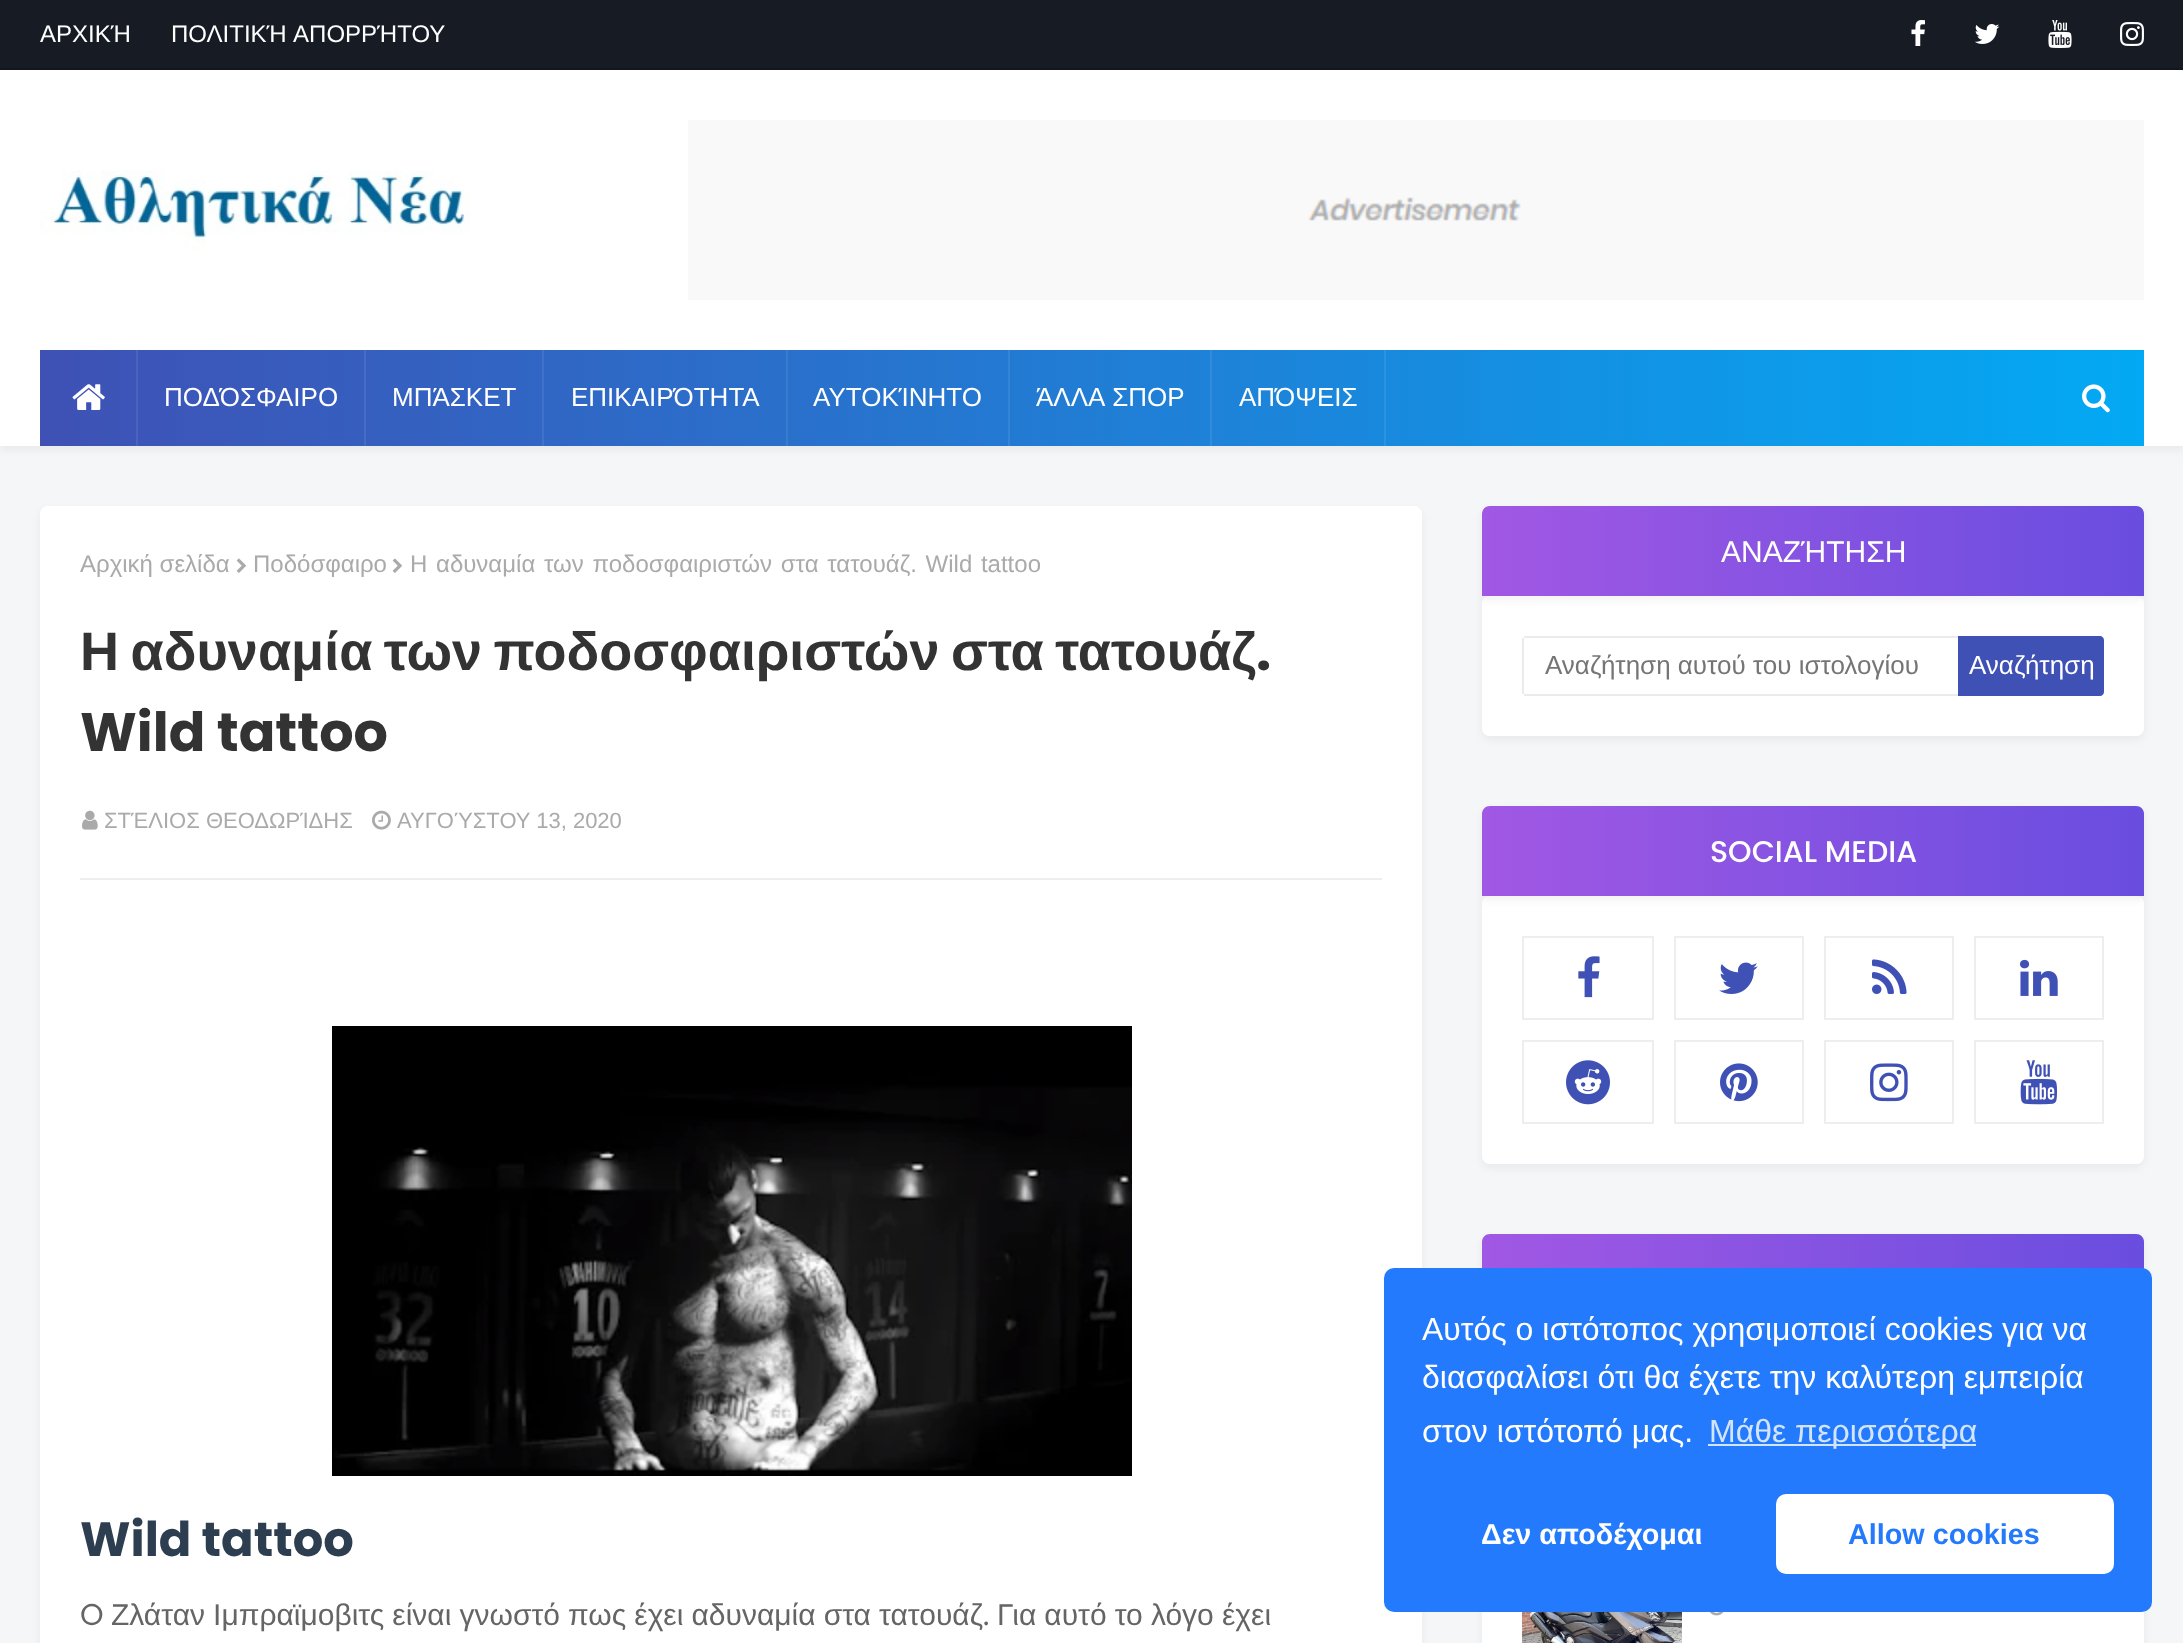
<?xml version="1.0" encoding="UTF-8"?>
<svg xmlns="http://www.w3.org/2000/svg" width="2183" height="1643">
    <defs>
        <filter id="blur1" x="-50%" y="-200%" width="200%" height="500%"><feGaussianBlur stdDeviation="4"/></filter>
        <linearGradient id="g1" gradientUnits="userSpaceOnUse" x1="40" y1="398" x2="2144" y2="398"><stop offset="0" stop-color="#3F51B5"/><stop offset="1" stop-color="#03A9F4"/></linearGradient>
        <clipPath id="clip1"><path d="M 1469 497 H 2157 V 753 H 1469 Z M 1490 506 H 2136 C 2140.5 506 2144 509.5 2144 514 V 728 C 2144 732.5 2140.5 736 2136 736 H 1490 C 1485.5 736 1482 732.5 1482 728 V 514 C 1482 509.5 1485.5 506 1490 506 Z" clip-rule="evenodd"/></clipPath>
        <clipPath id="clip2"><rect x="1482" y="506" width="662" height="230" rx="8"/></clipPath>
        <linearGradient id="g2" gradientUnits="userSpaceOnUse" x1="1482" y1="551" x2="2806" y2="551"><stop offset="0" stop-color="#A158E4"/><stop offset="1" stop-color="#3243DB"/></linearGradient>
        <clipPath id="clip3"><path d="M 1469 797 H 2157 V 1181 H 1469 Z M 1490 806 H 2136 C 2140.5 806 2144 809.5 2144 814 V 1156 C 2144 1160.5 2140.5 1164 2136 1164 H 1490 C 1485.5 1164 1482 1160.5 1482 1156 V 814 C 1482 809.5 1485.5 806 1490 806 Z" clip-rule="evenodd"/></clipPath>
        <clipPath id="clip4"><rect x="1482" y="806" width="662" height="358" rx="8"/></clipPath>
        <linearGradient id="g3" gradientUnits="userSpaceOnUse" x1="1482" y1="851" x2="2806" y2="851"><stop offset="0" stop-color="#A158E4"/><stop offset="1" stop-color="#3243DB"/></linearGradient>
        <linearGradient id="g4" gradientUnits="userSpaceOnUse" x1="1482" y1="1279" x2="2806" y2="1279"><stop offset="0" stop-color="#A158E4"/><stop offset="1" stop-color="#3243DB"/></linearGradient>
    </defs>
    <rect width="100%" height="100%" fill="#F5F6F7"/>
    <rect x="0" y="0" width="2183" height="68" fill="#171C24"/>
    <rect x="0" y="68" width="2183" height="2" fill="#12161D"/>
    <text x="40" y="42" font-family="Liberation Sans" font-size="24" fill="#FFFFFF">ΑΡΧΙΚΉ</text>
    <text x="171" y="42" word-spacing="1" font-family="Liberation Sans" font-size="24" fill="#FFFFFF">ΠΟΛΙΤΙΚΉ ΑΠΟΡΡΉΤΟΥ</text>
    <image x="1911" y="20" width="14" height="26" href="img_01.png"/>
    <image x="1974" y="24" width="26" height="20" href="img_02.png"/>
    <image x="2048" y="20" width="24" height="28" href="img_03.png"/>
    <image x="2120" y="22" width="24" height="24" href="img_04.png"/>
    <rect x="0" y="74" width="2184" height="376" fill="#000000" fill-opacity="0.05" filter="url(#blur1)"/>
    <rect x="0" y="70" width="2183" height="376" fill="#FFFFFF"/>
    <image x="40" y="170" width="430" height="80" href="img_05.png"/>
    <image x="688" y="120" width="1456" height="180" href="img_06.png"/>
    <rect x="40" y="350" width="2104" height="96" fill="url(#g1)"/>
    <rect x="136" y="350" width="2" height="96" fill="#4C63BE"/>
    <image x="72" y="384" width="33" height="26" href="img_07.png"/>
    <rect x="364" y="350" width="2" height="96" fill="#466CC4"/>
    <text x="164" y="406" font-family="Liberation Sans" font-size="26" fill="#FFFFFF">ΠΟΔΌΣΦΑΙΡΟ</text>
    <rect x="542" y="350" width="2" height="96" fill="#4172C9"/>
    <text x="392" y="406" font-family="Liberation Sans" font-size="26" fill="#FFFFFF">ΜΠΆΣΚΕΤ</text>
    <rect x="786" y="350" width="2" height="96" fill="#3B7BCF"/>
    <text x="571" y="406" font-family="Liberation Sans" font-size="26" fill="#FFFFFF">ΕΠΙΚΑΙΡΌΤΗΤΑ</text>
    <rect x="1008" y="350" width="2" height="96" fill="#3585D6"/>
    <text x="813" y="406" font-family="Liberation Sans" font-size="26" fill="#FFFFFF">ΑΥΤΟΚΊΝΗΤΟ</text>
    <rect x="1210" y="350" width="2" height="96" fill="#308CDB"/>
    <text x="1036" y="406" word-spacing="1" font-family="Liberation Sans" font-size="26" fill="#FFFFFF">ΆΛΛΑ ΣΠΟΡ</text>
    <rect x="1384" y="350" width="2" height="96" fill="#2B92E0"/>
    <text x="1239" y="406" font-family="Liberation Sans" font-size="26" fill="#FFFFFF">ΑΠΌΨΕΙΣ</text>
    <image x="2082" y="384" width="28" height="29" href="img_08.png"/>
    <rect x="40" y="510" width="1382" height="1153" rx="8" fill="#000000" fill-opacity="0.05" filter="url(#blur1)"/>
    <rect x="40" y="506" width="1382" height="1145" rx="8" fill="#FFFFFF"/>
    <text x="80" y="572" font-family="Liberation Sans" font-size="24" fill="#AAAAAA">Αρχική σελίδα</text>
    <image x="236" y="558" width="10" height="15" href="img_09.png"/>
    <text x="253" y="572" font-family="Liberation Sans" font-size="24" fill="#AAAAAA">Ποδόσφαιρο</text>
    <image x="392" y="558" width="10" height="15" href="img_09.png"/>
    <text x="410" y="572" word-spacing="2" font-family="Liberation Sans" font-size="24" fill="#AAAAAA">Η αδυναμία των ποδοσφαιριστών στα τατουάζ. Wild tattoo</text>
    <text x="80" y="670" word-spacing="-3.5" font-family="Liberation Sans" font-size="54" font-weight="700" fill="#333333">Η αδυναμία των ποδοσφαιριστών στα τατουάζ</text>
    <text x="1256" y="670" font-family="Poppins" font-size="54" font-weight="700" fill="#333333">.</text>
    <text x="80" y="751" font-family="Poppins" font-size="54" font-weight="700" fill="#333333">Wild tattoo</text>
    <image x="82" y="810" width="16" height="20" href="img_10.png"/>
    <text x="104" y="828" font-family="Liberation Sans" font-size="22" fill="#AAAAAA">ΣΤΈΛΙΟΣ ΘΕΟΔΩΡΊΔΗΣ</text>
    <image x="372" y="810" width="19" height="20" href="img_11.png"/>
    <text x="397" y="828" font-family="Liberation Sans" font-size="22" fill="#AAAAAA">ΑΥΓΟΎΣΤΟΥ 13, 2020</text>
    <rect x="80" y="878" width="1302" height="2" fill="#EEEEEE"/>
    <image x="332" y="1026" width="800" height="450" href="img_12.png"/>
    <text x="80" y="1556" font-family="Poppins" font-size="48" font-weight="700" fill="#2C3E50">Wild tattoo</text>
    <text x="80" y="1625" font-family="Poppins" font-size="30" fill="#656565">O</text>
    <text x="111" y="1625" word-spacing="-0.25" font-family="Liberation Sans" font-size="30" fill="#656565">Ζλάταν Ιμπραϊμοβιτς είναι γνωστό πως έχει αδυναμία στα τατουάζ</text>
    <text x="983" y="1625" font-family="Poppins" font-size="30" fill="#656565">.</text>
    <text x="997" y="1625" word-spacing="-0.25" font-family="Liberation Sans" font-size="30" fill="#656565">Για αυτό το λόγο έχει</text>
    <g clip-path="url(#clip1)">
        <rect x="1482" y="510" width="662" height="230" rx="8" fill="#000000" fill-opacity="0.05" filter="url(#blur1)"/>
    </g>
    <rect x="1482" y="596" width="662" height="140" rx="8" fill="#FFFFFF"/>
    <g clip-path="url(#clip2)">
        <rect x="1482" y="510" width="662" height="90" fill="#000000" fill-opacity="0.05" filter="url(#blur1)"/>
    </g>
    <path d="M 1490 506 H 2136 C 2140.5 506 2144 509.5 2144 514 V 596 H 1482 V 514 C 1482 509.5 1485.5 506 1490 506 Z" fill="url(#g2)"/>
    <text x="1721" y="562" font-family="Liberation Sans" font-size="30" fill="#FFFFFF">ΑΝΑΖΉΤΗΣΗ</text>
    <rect x="1524" y="636" width="434" height="2" fill="#EBEBEB"/>
    <rect x="1524" y="694" width="434" height="2" fill="#EBEBEB"/>
    <rect x="1522" y="638" width="2" height="56" fill="#EBEBEB"/>
    <text x="1545" y="674" font-family="Liberation Sans" font-size="26" fill="#757575">Αναζήτηση αυτού του ιστολογίου</text>
    <path d="M 1958 636 H 2100 C 2102 636 2104 638 2104 640 V 692 C 2104 694 2102 696 2100 696 H 1958 Z" fill="#3F51B5"/>
    <text x="1969" y="674" font-family="Liberation Sans" font-size="26" fill="#FFFFFF">Αναζήτηση</text>
    <g clip-path="url(#clip3)">
        <rect x="1482" y="810" width="662" height="358" rx="8" fill="#000000" fill-opacity="0.05" filter="url(#blur1)"/>
    </g>
    <rect x="1482" y="896" width="662" height="268" rx="8" fill="#FFFFFF"/>
    <g clip-path="url(#clip4)">
        <rect x="1482" y="810" width="662" height="90" fill="#000000" fill-opacity="0.05" filter="url(#blur1)"/>
    </g>
    <path d="M 1490 806 H 2136 C 2140.5 806 2144 809.5 2144 814 V 896 H 1482 V 814 C 1482 809.5 1485.5 806 1490 806 Z" fill="url(#g3)"/>
    <text x="1710" y="862" font-family="Poppins" font-size="30" font-weight="500" fill="#FFFFFF">SOCIAL MEDIA</text>
    <rect x="1523" y="937" width="130" height="82" fill="none" stroke="#EEEEEE" stroke-width="2"/>
    <image x="1578" y="956" width="22" height="42" href="img_13.png"/>
    <rect x="1675" y="937" width="128" height="82" fill="none" stroke="#EEEEEE" stroke-width="2"/>
    <image x="1719" y="962" width="39" height="32" href="img_14.png"/>
    <rect x="1825" y="937" width="128" height="82" fill="none" stroke="#EEEEEE" stroke-width="2"/>
    <image x="1872" y="959" width="35" height="35" href="img_15.png"/>
    <rect x="1975" y="937" width="128" height="82" fill="none" stroke="#EEEEEE" stroke-width="2"/>
    <image x="2020" y="959" width="38" height="37" href="img_16.png"/>
    <rect x="1523" y="1041" width="130" height="82" fill="none" stroke="#EEEEEE" stroke-width="2"/>
    <image x="1566" y="1060" width="44" height="45" href="img_17.png"/>
    <rect x="1675" y="1041" width="128" height="82" fill="none" stroke="#EEEEEE" stroke-width="2"/>
    <image x="1720" y="1063" width="38" height="39" href="img_18.png"/>
    <rect x="1825" y="1041" width="128" height="82" fill="none" stroke="#EEEEEE" stroke-width="2"/>
    <image x="1870" y="1063" width="38" height="39" href="img_19.png"/>
    <rect x="1975" y="1041" width="128" height="82" fill="none" stroke="#EEEEEE" stroke-width="2"/>
    <image x="2020" y="1060" width="38" height="45" href="img_20.png"/>
    <rect x="1482" y="1238" width="662" height="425" rx="8" fill="#000000" fill-opacity="0.05" filter="url(#blur1)"/>
    <path d="M 1490 1234 H 2136 C 2140.5 1234 2144 1237.5 2144 1242 V 1324 H 1482 V 1242 C 1482 1237.5 1485.5 1234 1490 1234 Z" fill="url(#g4)"/>
    <rect x="1482" y="1611" width="662" height="32" fill="#FFFFFF"/>
    <image x="1522" y="1612" width="160" height="31" href="img_21.png"/>
    <image x="1709" y="1612" width="15" height="4" href="img_22.png"/>
    <rect x="1384" y="1268" width="768" height="344" rx="10" fill="#237AFC"/>
    <text font-family="Liberation Sans" font-size="32" fill="#FFFFFF">
        <tspan x="1422" y="1340">Αυτός ο ιστότοπος χρησιμοποιεί cookies για να</tspan>
        <tspan x="1422" y="1388">διασφαλίσει ότι θα έχετε την καλύτερη εμπειρία</tspan>
        <tspan x="1422" y="1442">στον ιστότοπό μας.</tspan>
    </text>
    <rect x="1708" y="1444" width="268" height="2" fill="#D3E4FE"/>
    <text x="1709" y="1442" font-family="Liberation Sans" font-size="32" fill="#D3E4FE">Μάθε περισσότερα</text>
    <text x="1481" y="1544" font-family="Liberation Sans" font-size="28.75" font-weight="700" fill="#FFFFFF">Δεν αποδέχομαι</text>
    <rect x="1776" y="1494" width="338" height="80" rx="10" fill="#FFFFFF"/>
    <text x="1848" y="1544" font-family="Liberation Sans" font-size="28.75" font-weight="700" fill="#237AFC">Allow cookies</text>
</svg>
